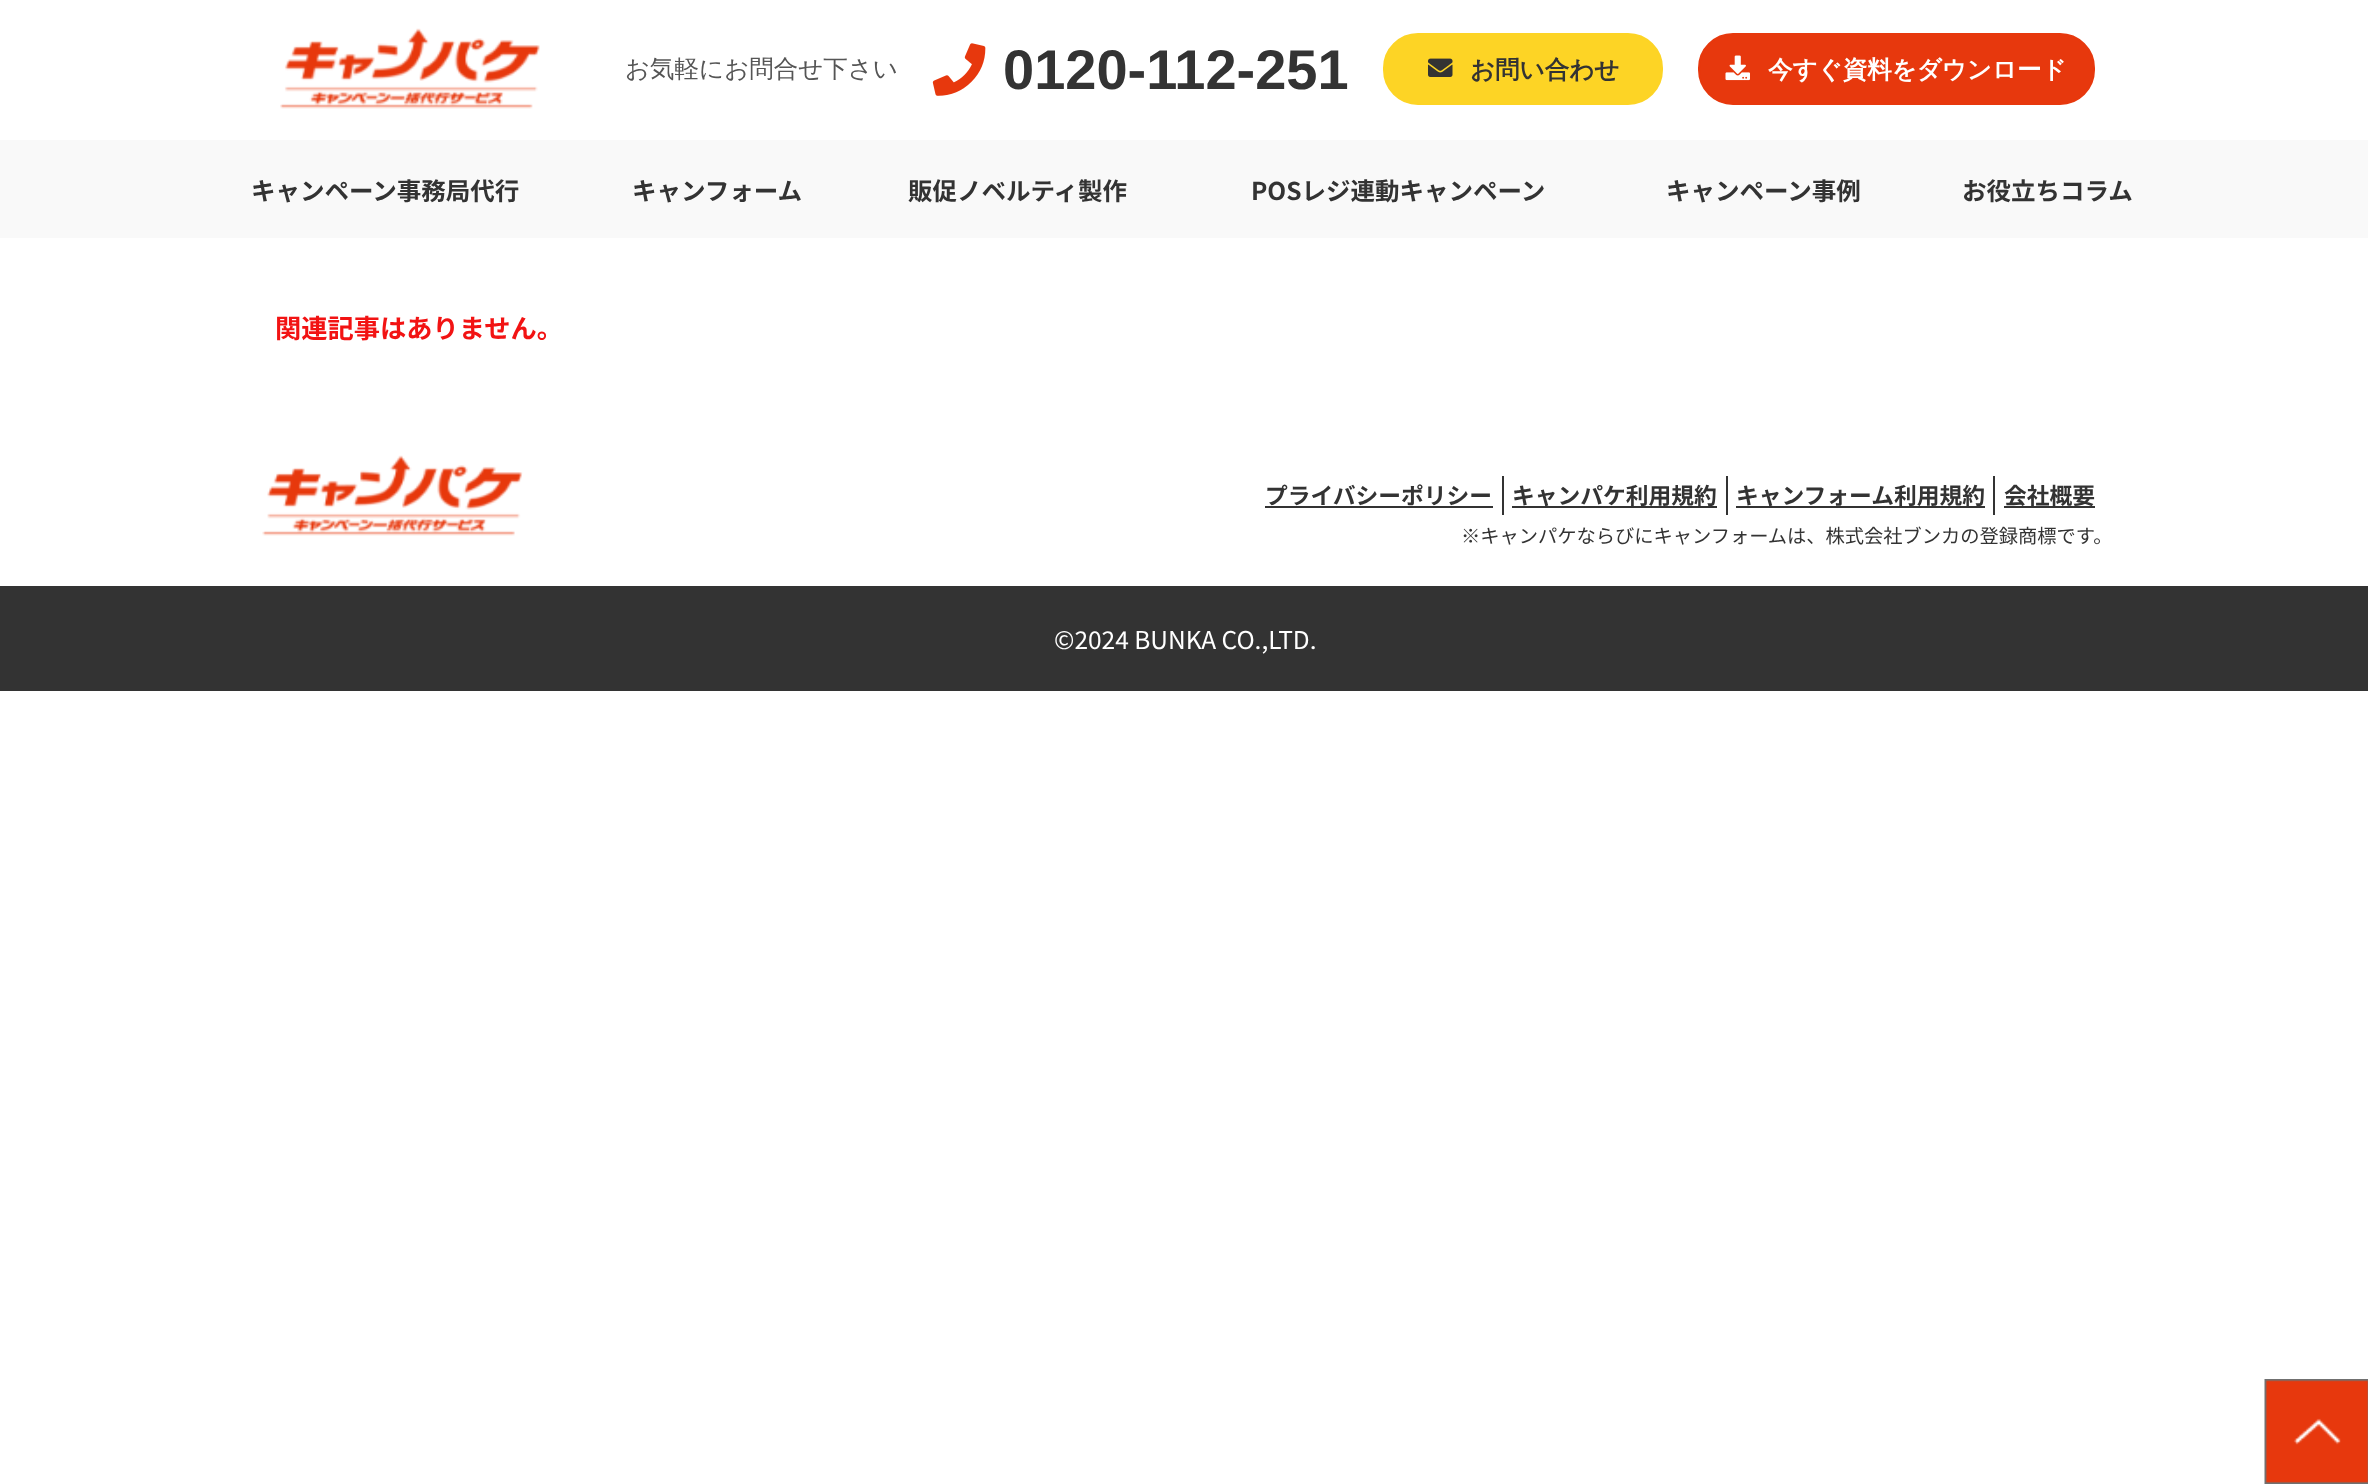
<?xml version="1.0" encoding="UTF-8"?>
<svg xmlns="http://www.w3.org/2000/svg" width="2368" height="1484">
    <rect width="100%" height="100%" fill="#FFFFFF"/>
    <image x="280" y="28" width="260" height="81" href="img_01.png"/>
    <text x="625" y="77" font-family="WenQuanYi Zen Hei" font-size="24.5" font-weight="500" fill="#555555">お気軽にお問合せ下さい</text>
    <image x="932" y="43" width="54" height="53" href="img_02.png"/>
    <text x="1003" y="89" font-family="Liberation Sans" font-size="56" font-weight="700" fill="#333333">0120-112-251</text>
    <rect x="1384" y="34" width="278" height="70" rx="34" fill="#FDD425" stroke="#FDD425" stroke-width="2"/>
    <image x="1428" y="58" width="25" height="19" href="img_03.png"/>
    <text x="1470" y="78" font-family="WenQuanYi Zen Hei" font-size="24.5" font-weight="700" fill="#333333">お問い合わせ</text>
    <rect x="1699" y="34" width="395" height="70" rx="34" fill="#E7380D" stroke="#E7380D" stroke-width="2"/>
    <image x="1725" y="55" width="25" height="26" href="img_04.png"/>
    <text x="1768" y="78" font-family="WenQuanYi Zen Hei" font-size="24.5" font-weight="700" fill="#FFFFFF">今すぐ資料をダウンロード</text>
    <rect x="0" y="140" width="2368" height="98" fill="#F9F9F9"/>
    <text x="251" y="200" font-family="Noto Sans JP" font-size="24.5" font-weight="700" fill="#333333">キャンペーン事務局代行</text>
    <text x="632" y="200" font-family="Noto Sans JP" font-size="24.5" font-weight="700" fill="#333333">キャンフォーム</text>
    <text x="908" y="200" font-family="Noto Sans JP" font-size="24.5" font-weight="700" fill="#333333">販促ノベルティ製作</text>
    <text x="1251" y="200" font-family="Noto Sans JP" font-size="24.5" font-weight="700" fill="#333333">POSレジ連動キャンペーン</text>
    <text x="1666" y="200" font-family="Noto Sans JP" font-size="24.5" font-weight="700" fill="#333333">キャンペーン事例</text>
    <text x="1962" y="200" font-family="Noto Sans JP" font-size="24.5" font-weight="700" fill="#333333">お役立ちコラム</text>
    <text x="275" y="338" font-family="Noto Sans JP" font-size="26.25" font-weight="700" fill="#F21313">関連記事はありません。</text>
    <image x="262" y="455" width="261" height="81" href="img_05.png"/>
    <rect x="1502" y="476" width="2" height="39" fill="#333333"/>
    <text x="1265" y="504" font-family="Noto Sans JP" font-size="22.75" font-weight="700" fill="#333333">プライバシーポリシー</text>
    <rect x="1265" y="506" width="228" height="2" fill="#333333"/>
    <rect x="1726" y="476" width="2" height="39" fill="#333333"/>
    <rect x="1512" y="506" width="205" height="2" fill="#333333"/>
    <text x="1512" y="504" font-family="Noto Sans JP" font-size="22.75" font-weight="700" fill="#333333">キャンパケ利用規約</text>
    <rect x="1993" y="476" width="2" height="39" fill="#333333"/>
    <rect x="1736" y="506" width="249" height="2" fill="#333333"/>
    <text x="1736" y="504" font-family="Noto Sans JP" font-size="22.75" font-weight="700" fill="#333333">キャンフォーム利用規約</text>
    <rect x="2004" y="506" width="91" height="2" fill="#333333"/>
    <text x="2004" y="504" font-family="Noto Sans JP" font-size="22.75" font-weight="700" fill="#333333">会社概要</text>
    <text x="1461" y="543" font-family="Noto Sans JP" font-size="19.25" fill="#333333">※キャンパケならびにキャンフォームは、株式会社ブンカの登録商標です。</text>
    <image x="2264" y="1379" width="104" height="105" href="img_06.png"/>
    <rect x="0" y="586" width="2368" height="105" fill="#333333"/>
    <text x="1054" y="649" font-family="Noto Sans JP" font-size="24.5" fill="#FFFFFF">©2024 BUNKA CO.,LTD.</text>
</svg>
